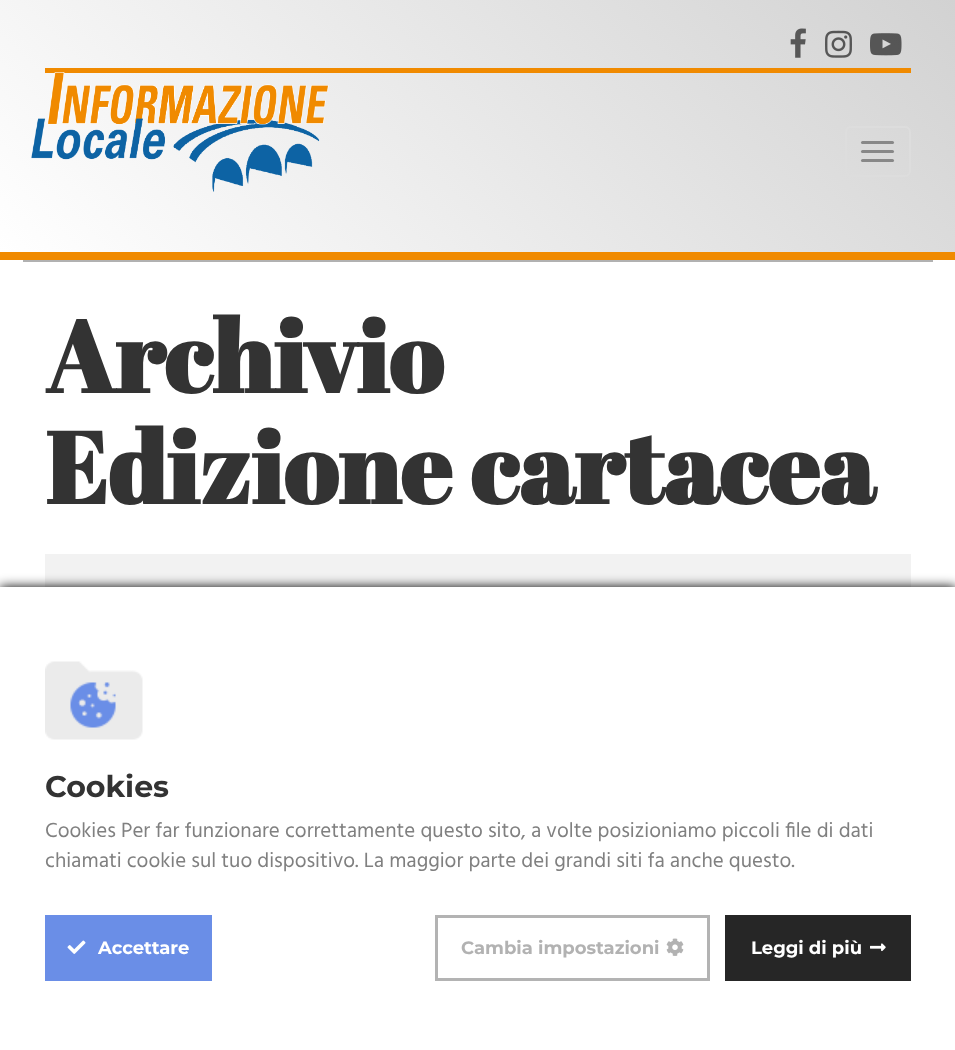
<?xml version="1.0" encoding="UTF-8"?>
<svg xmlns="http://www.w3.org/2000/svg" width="955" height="1050">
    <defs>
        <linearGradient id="g1" gradientUnits="userSpaceOnUse" x1="176" y1="428" x2="780" y2="-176"><stop offset="0" stop-color="#FFFFFF"/><stop offset="1" stop-color="#D2D2D2"/></linearGradient>
        <filter id="blur1" x="-50%" y="-200%" width="200%" height="500%"><feGaussianBlur stdDeviation="6"/></filter>
    </defs>
    <rect width="100%" height="100%" fill="#FFFFFF"/>
    <rect x="0" y="0" width="955" height="252" fill="url(#g1)"/>
    <rect x="0" y="252" width="955" height="8" fill="#F08A00"/>
    <rect x="45" y="68" width="866" height="5" fill="#F08A00"/>
    <image x="790" y="28" width="16" height="30" href="img_01.png"/>
    <image x="825" y="30" width="27" height="28" href="img_02.png"/>
    <image x="870" y="33" width="32" height="23" href="img_03.png"/>
    <image x="31" y="72" width="298" height="120" href="img_04.png"/>
    <rect x="846" y="127" width="64" height="49" rx="5" fill="none" stroke="#DDDDDD" stroke-width="2"/>
    <rect x="861" y="141" width="33" height="3" rx="1.5" fill="#888888"/>
    <rect x="861" y="150" width="33" height="3" rx="1.5" fill="#888888"/>
    <rect x="861" y="159" width="33" height="3" rx="1.5" fill="#888888"/>
    <rect x="23" y="260" width="910" height="2" fill="#B1B1B1"/>
    <text font-family="Abril Fatface" font-size="100.75" font-weight="700" fill="#333333">
        <tspan x="45" y="393">Archivio</tspan>
        <tspan x="45" y="504">Edizione cartacea</tspan>
    </text>
    <rect x="45" y="554" width="866" height="33" fill="#F2F2F2"/>
    <rect x="0" y="587" width="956" height="463" fill="#000000" filter="url(#blur1)"/>
    <rect x="0" y="587" width="955" height="463" fill="#FFFFFF"/>
    <image x="45" y="661" width="98" height="79" href="img_05.png"/>
    <text x="45" y="797" font-family="Montserrat" font-size="30" font-weight="700" fill="#333333">Cookies</text>
    <text font-family="Hind" font-size="21" fill="#808080">
        <tspan x="45" y="837">Cookies Per far funzionare correttamente questo sito, a volte posizioniamo piccoli file di dati</tspan>
        <tspan x="45" y="867">chiamati cookie sul tuo dispositivo. La maggior parte dei grandi siti fa anche questo.</tspan>
    </text>
    <rect x="45" y="915" width="167" height="66" fill="#6A8EE7"/>
    <image x="67" y="940" width="19" height="14" href="img_06.png"/>
    <text x="98" y="954" font-family="Montserrat" font-size="18" font-weight="700" fill="#FFFFFF">Accettare</text>
    <rect x="436.5" y="916.5" width="272" height="63" fill="none" stroke="#B3B3B3" stroke-width="3"/>
    <text x="461" y="954" font-family="Montserrat" font-size="18" font-weight="700" fill="#B2B2B2">Cambia impostazioni</text>
    <image x="666" y="938" width="18" height="18" href="img_07.png"/>
    <rect x="725" y="915" width="186" height="66" fill="#262626"/>
    <text x="751" y="954" font-family="Montserrat" font-size="18" font-weight="700" fill="#FFFFFF">Leggi di più</text>
    <image x="870" y="943" width="16" height="9" href="img_08.png"/>
</svg>
